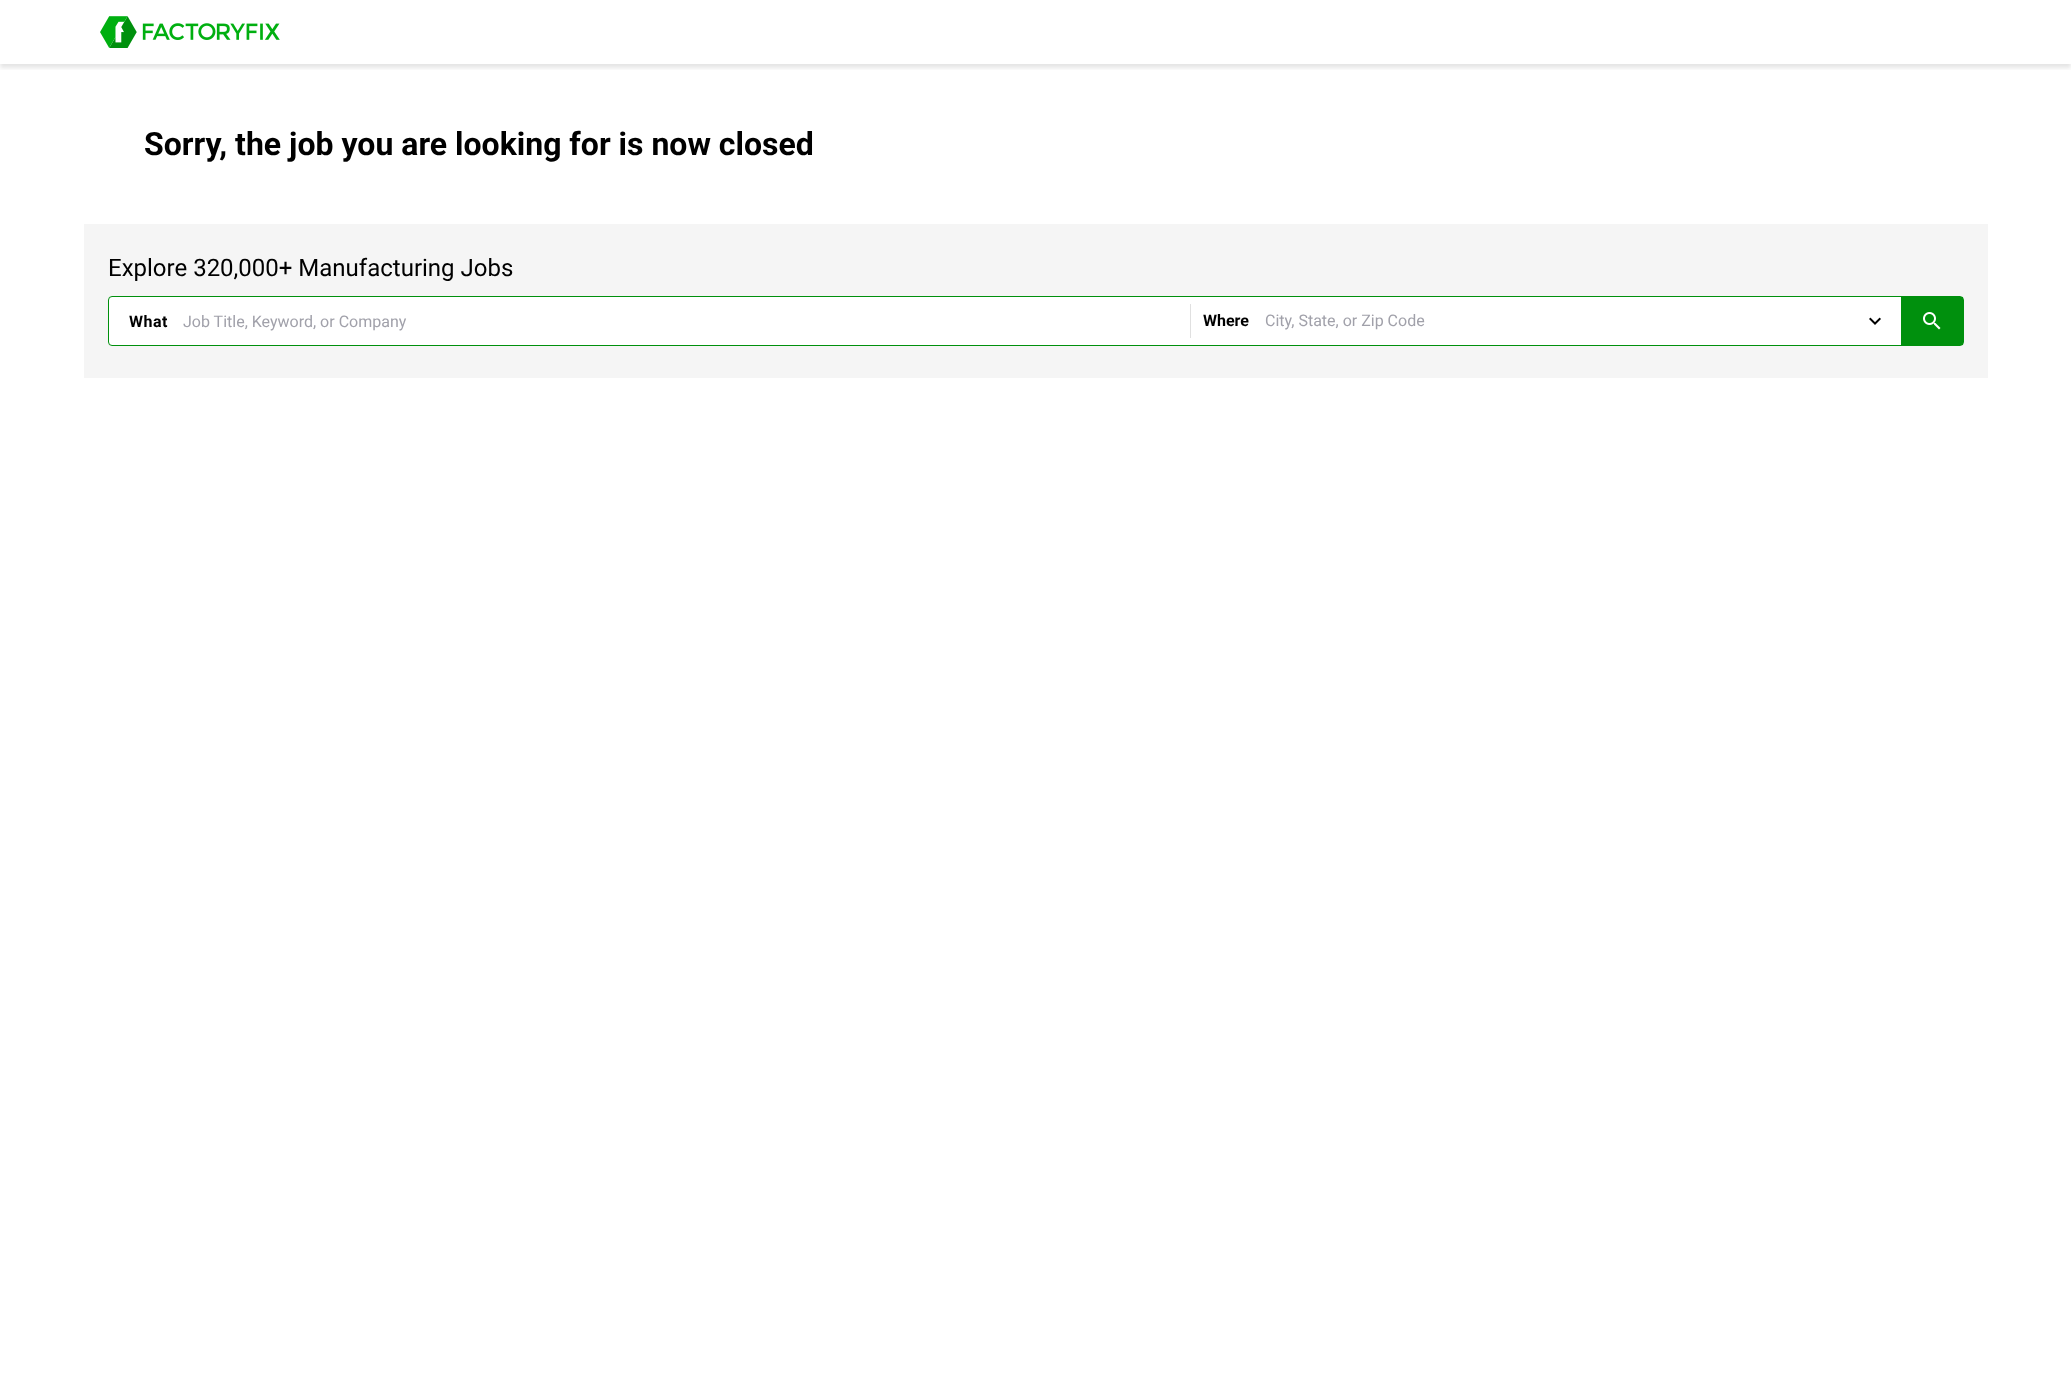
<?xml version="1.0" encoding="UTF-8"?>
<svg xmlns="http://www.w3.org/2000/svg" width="2071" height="1397">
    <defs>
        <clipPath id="clip1"><rect x="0" y="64" width="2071" height="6"/></clipPath>
        <filter id="blur1" x="-50%" y="-200%" width="200%" height="500%"><feGaussianBlur stdDeviation="2"/></filter>
    </defs>
    <rect width="100%" height="100%" fill="#FFFFFF"/>
    <g clip-path="url(#clip1)">
        <rect x="0" y="4" width="2071" height="64" fill="#000000" fill-opacity="0.1" filter="url(#blur1)"/>
    </g>
    <image x="100" y="16" width="180" height="32" href="img_01.png"/>
    <text x="144" y="155" font-family="Roboto" font-size="32" font-weight="700" fill="#000000">Sorry, the job you are looking for is now closed</text>
    <rect x="84" y="224" width="1904" height="154" fill="#F5F5F5"/>
    <text x="108" y="276" font-family="Roboto" font-size="24" fill="#000000">Explore 320,000+ Manufacturing Jobs</text>
    <rect x="108.5" y="296.5" width="1855" height="49" rx="3.5" fill="#FFFFFF" stroke="#00900D"/>
    <text x="129" y="327" font-family="Roboto" font-size="16" font-weight="700" letter-spacing="0.5" fill="#000000">What</text>
    <text x="183" y="327" font-family="Roboto" font-size="16" fill="#A1A1AA">Job Title, Keyword, or Company</text>
    <rect x="1190" y="304" width="1" height="34" fill="#E0E0E0"/>
    <text x="1203" y="326" font-family="Roboto" font-size="16" font-weight="700" fill="#000000">Where</text>
    <text x="1265" y="326" font-family="Roboto" font-size="16" fill="#A1A1AA">City, State, or Zip Code</text>
    <image x="1869" y="317" width="12" height="8" href="img_02.png"/>
    <rect x="1901" y="297" width="62" height="48" fill="#00900D"/>
    <image x="1923" y="312" width="18" height="18" href="img_03.png"/>
</svg>
